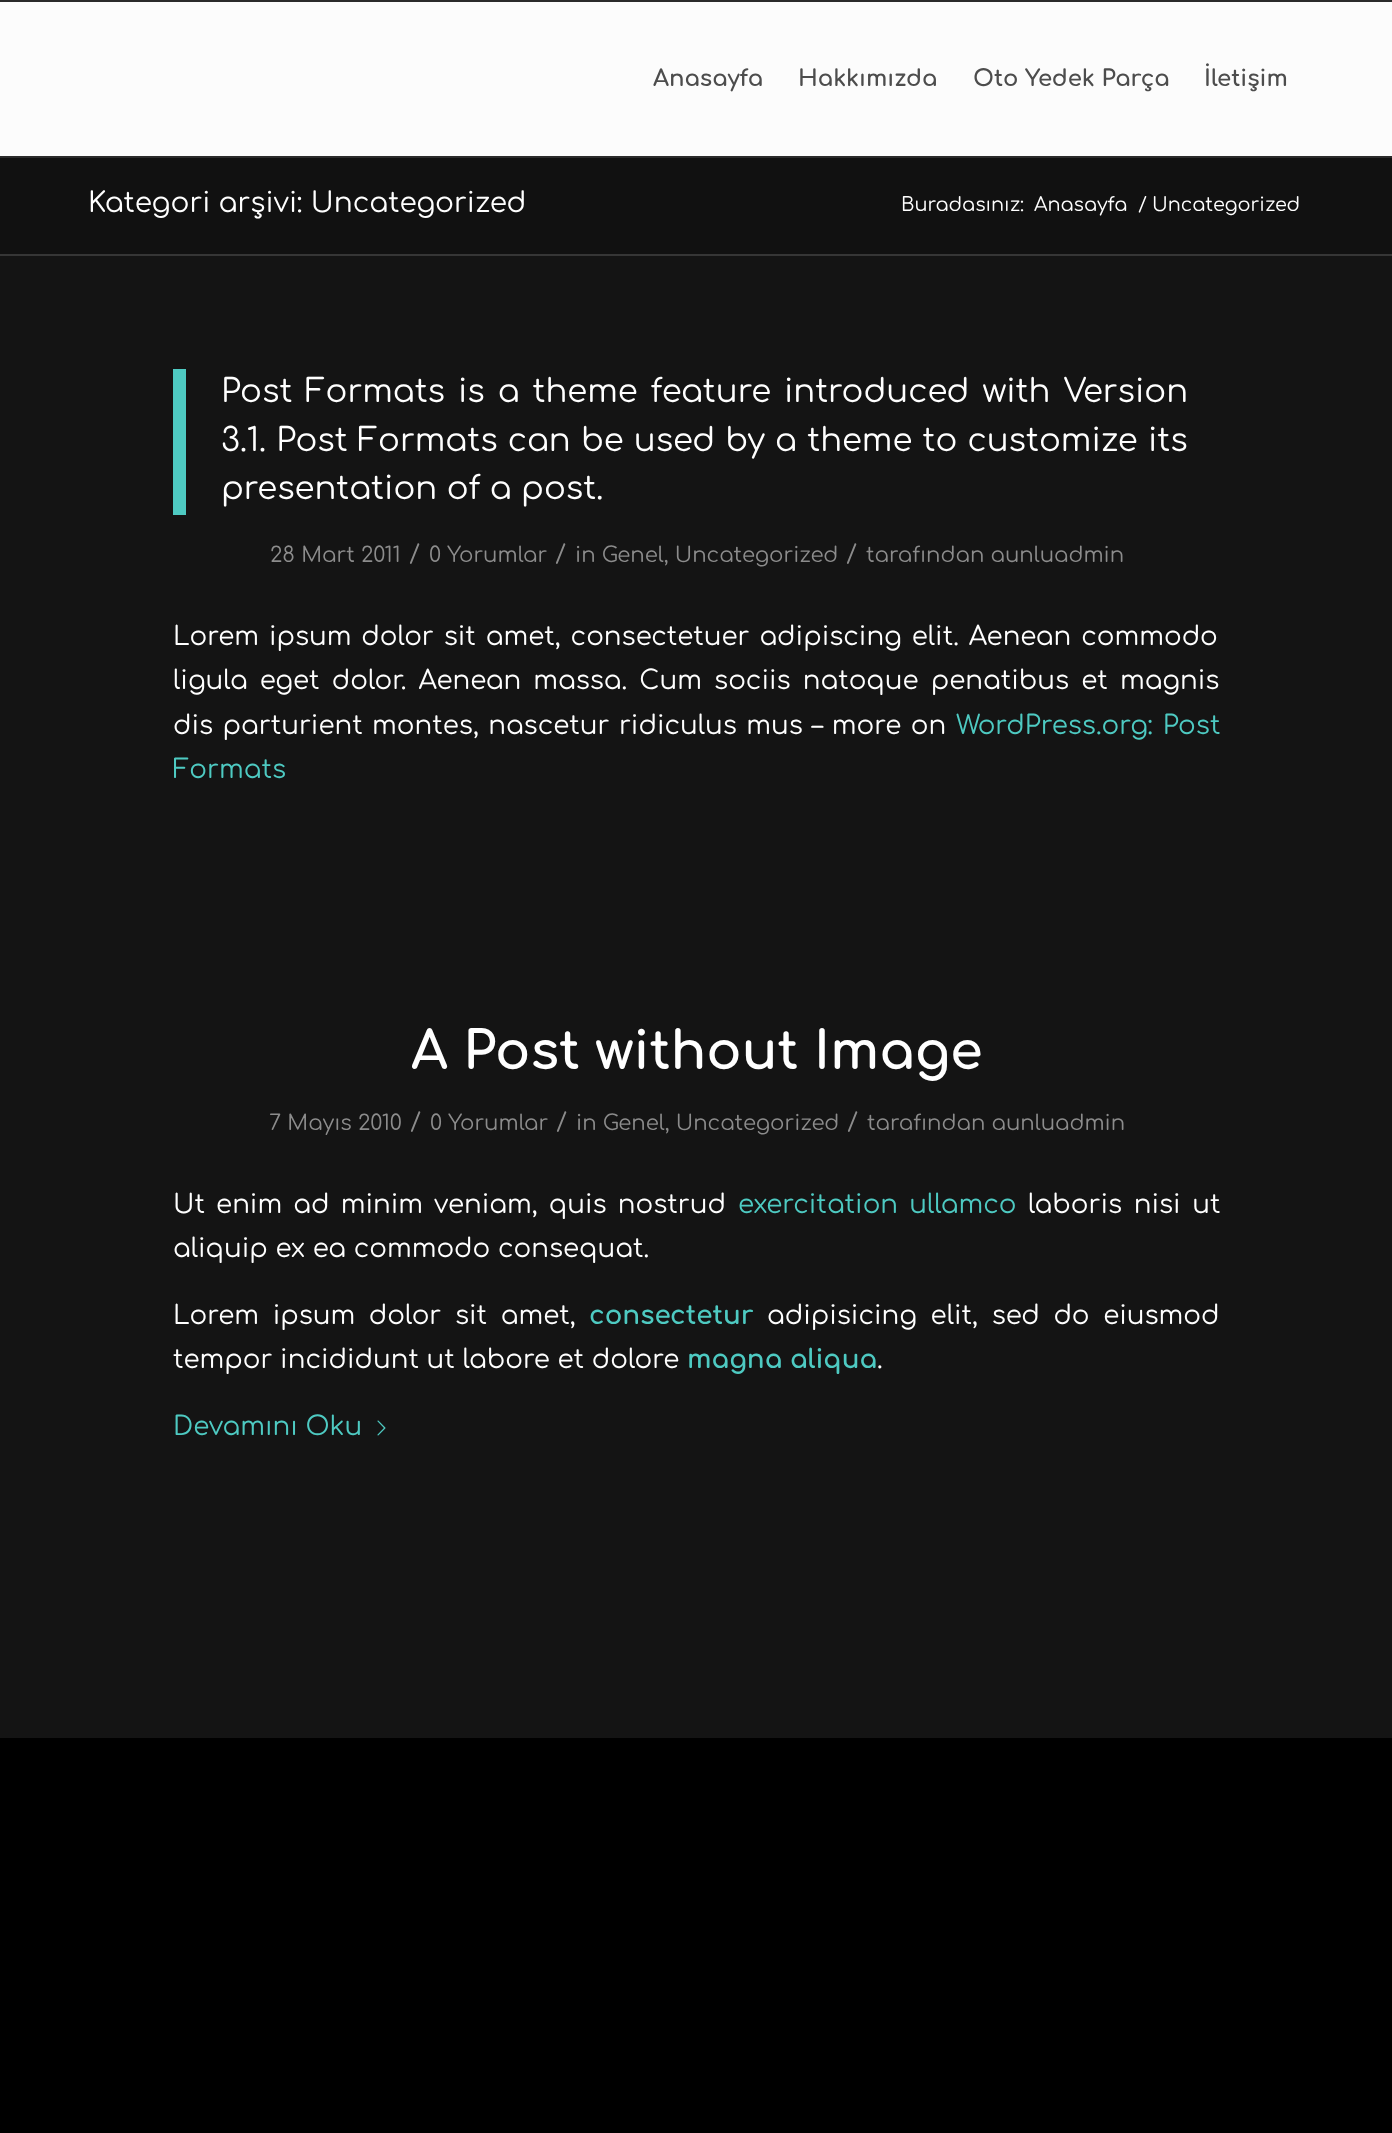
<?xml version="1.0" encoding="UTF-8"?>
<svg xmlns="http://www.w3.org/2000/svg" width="1392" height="2133">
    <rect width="100%" height="100%" fill="#000000"/>
    <rect x="0" y="2" width="1392" height="154" fill="#FCFCFC"/>
    <rect x="0" y="0" width="1392" height="2" fill="#2B2B2B"/>
    <rect x="0" y="156" width="1392" height="2" fill="#2B2B2B"/>
    <text x="653" y="86" font-family="Comfortaa" font-size="22.75" font-weight="700" fill="#4D4D4D">Anasayfa</text>
    <text x="798" y="86" font-family="Comfortaa" font-size="22.75" font-weight="700" fill="#4D4D4D">Hakkımızda</text>
    <text x="973" y="86" font-family="Comfortaa" font-size="22.75" font-weight="700" fill="#4D4D4D">Oto Yedek Parça</text>
    <text x="1204" y="86" font-family="Comfortaa" font-size="22.75" font-weight="700" fill="#4D4D4D">İletişim</text>
    <rect x="0" y="158" width="1392" height="96" fill="#111111"/>
    <text x="88" y="212" font-family="Comfortaa" font-size="28" fill="#FFFFFF">Kategori arşivi: Uncategorized</text>
    <text x="901" y="211" font-family="Comfortaa" font-size="19.25" fill="#FFFFFF">Buradasınız:</text>
    <text x="1034" y="211" font-family="Comfortaa" font-size="19.25" fill="#FFFFFF">Anasayfa</text>
    <text x="1138" y="211" font-family="Comfortaa" font-size="19.25" fill="#FFFFFF">/</text>
    <text x="1152" y="211" font-family="Comfortaa" font-size="19.25" fill="#FFFFFF">Uncategorized</text>
    <rect x="0" y="256" width="1392" height="1482" fill="#141414"/>
    <rect x="0" y="254" width="1392" height="2" fill="#363636"/>
    <rect x="173" y="369" width="13" height="146" fill="#4ECAC2"/>
    <text font-family="Comfortaa" font-size="32.3" fill="#FFFFFF">
        <tspan x="221" y="402" word-spacing="3.5">Post Formats is a theme feature introduced with Version</tspan>
        <tspan x="221" y="451" word-spacing="0.75">3.1. Post Formats can be used by a theme to customize its</tspan>
        <tspan x="221" y="499">presentation of a post.</tspan>
    </text>
    <text x="270" y="562" font-family="Comfortaa" font-size="21.25" fill="#8C8C8C">28 Mart 2011</text>
    <text x="409" y="562" font-family="Comfortaa" font-size="24" fill="#8C8C8C">/</text>
    <text x="429" y="562" font-family="Comfortaa" font-size="21.25" fill="#8C8C8C">0 Yorumlar</text>
    <text x="555" y="562" font-family="Comfortaa" font-size="24" fill="#8C8C8C">/</text>
    <text x="575" y="562" font-family="Comfortaa" font-size="21.25" fill="#8C8C8C">in Genel, Uncategorized</text>
    <text x="846" y="562" font-family="Comfortaa" font-size="24" fill="#8C8C8C">/</text>
    <text x="866" y="562" font-family="Comfortaa" font-size="21.25" fill="#8C8C8C">tarafından aunluadmin</text>
    <text font-family="Comfortaa" font-size="26.15" fill="#FFFFFF">
        <tspan x="173" y="645" word-spacing="2.25">Lorem ipsum dolor sit amet, consectetuer adipiscing elit. Aenean commodo</tspan>
        <tspan x="173" y="689" word-spacing="4.5">ligula eget dolor. Aenean massa. Cum sociis natoque penatibus et magnis</tspan>
        <tspan x="173" y="734" word-spacing="1.75">dis parturient montes, nascetur ridiculus mus – more on</tspan>
    </text>
    <text x="956" y="734" word-spacing="2" font-family="Comfortaa" font-size="26.15" fill="#4ECAC2">WordPress.org: Post</text>
    <text x="173" y="778" font-family="Comfortaa" font-size="26.15" fill="#4ECAC2">Formats</text>
    <text x="411" y="1069" font-family="Comfortaa" font-size="52.5" font-weight="700" fill="#FFFFFF">A Post without Image</text>
    <text x="269" y="1130" font-family="Comfortaa" font-size="21.25" fill="#8C8C8C">7 Mayıs 2010</text>
    <text x="410" y="1130" font-family="Comfortaa" font-size="24" fill="#8C8C8C">/</text>
    <text x="430" y="1130" font-family="Comfortaa" font-size="21.25" fill="#8C8C8C">0 Yorumlar</text>
    <text x="556" y="1130" font-family="Comfortaa" font-size="24" fill="#8C8C8C">/</text>
    <text x="576" y="1130" font-family="Comfortaa" font-size="21.25" fill="#8C8C8C">in Genel, Uncategorized</text>
    <text x="847" y="1130" font-family="Comfortaa" font-size="24" fill="#8C8C8C">/</text>
    <text x="867" y="1130" font-family="Comfortaa" font-size="21.25" fill="#8C8C8C">tarafından aunluadmin</text>
    <text x="173" y="1213" word-spacing="3.5" font-family="Comfortaa" font-size="26.15" fill="#FFFFFF">Ut enim ad minim veniam, quis nostrud</text>
    <text x="738" y="1213" word-spacing="3.5" font-family="Comfortaa" font-size="26.15" fill="#4ECAC2">exercitation ullamco</text>
    <text x="1028" y="1213" word-spacing="4" font-family="Comfortaa" font-size="26.15" fill="#FFFFFF">laboris nisi ut</text>
    <text x="173" y="1257" font-family="Comfortaa" font-size="26.15" fill="#FFFFFF">aliquip ex ea commodo consequat.</text>
    <text x="173" y="1324" word-spacing="6" font-family="Comfortaa" font-size="26.15" fill="#FFFFFF">Lorem ipsum dolor sit amet,</text>
    <text x="589" y="1324" font-family="Comfortaa" font-size="26.15" font-weight="700" fill="#4ECAC2">consectetur</text>
    <text x="767" y="1324" word-spacing="6" font-family="Comfortaa" font-size="26.15" fill="#FFFFFF">adipisicing elit, sed do eiusmod</text>
    <text x="173" y="1368" font-family="Comfortaa" font-size="26.15" fill="#FFFFFF">tempor incididunt ut labore et dolore</text>
    <text x="687" y="1368" font-family="Comfortaa" font-size="26.15" font-weight="700" fill="#4ECAC2">magna aliqua</text>
    <text x="877" y="1368" font-family="Comfortaa" font-size="26.15" fill="#FFFFFF">.</text>
    <text x="173" y="1435" font-family="Comfortaa" font-size="26.15" fill="#4ECAC2">Devamını Oku</text>
    <image x="377" y="1420" width="9" height="16" href="img_01.png"/>
</svg>
